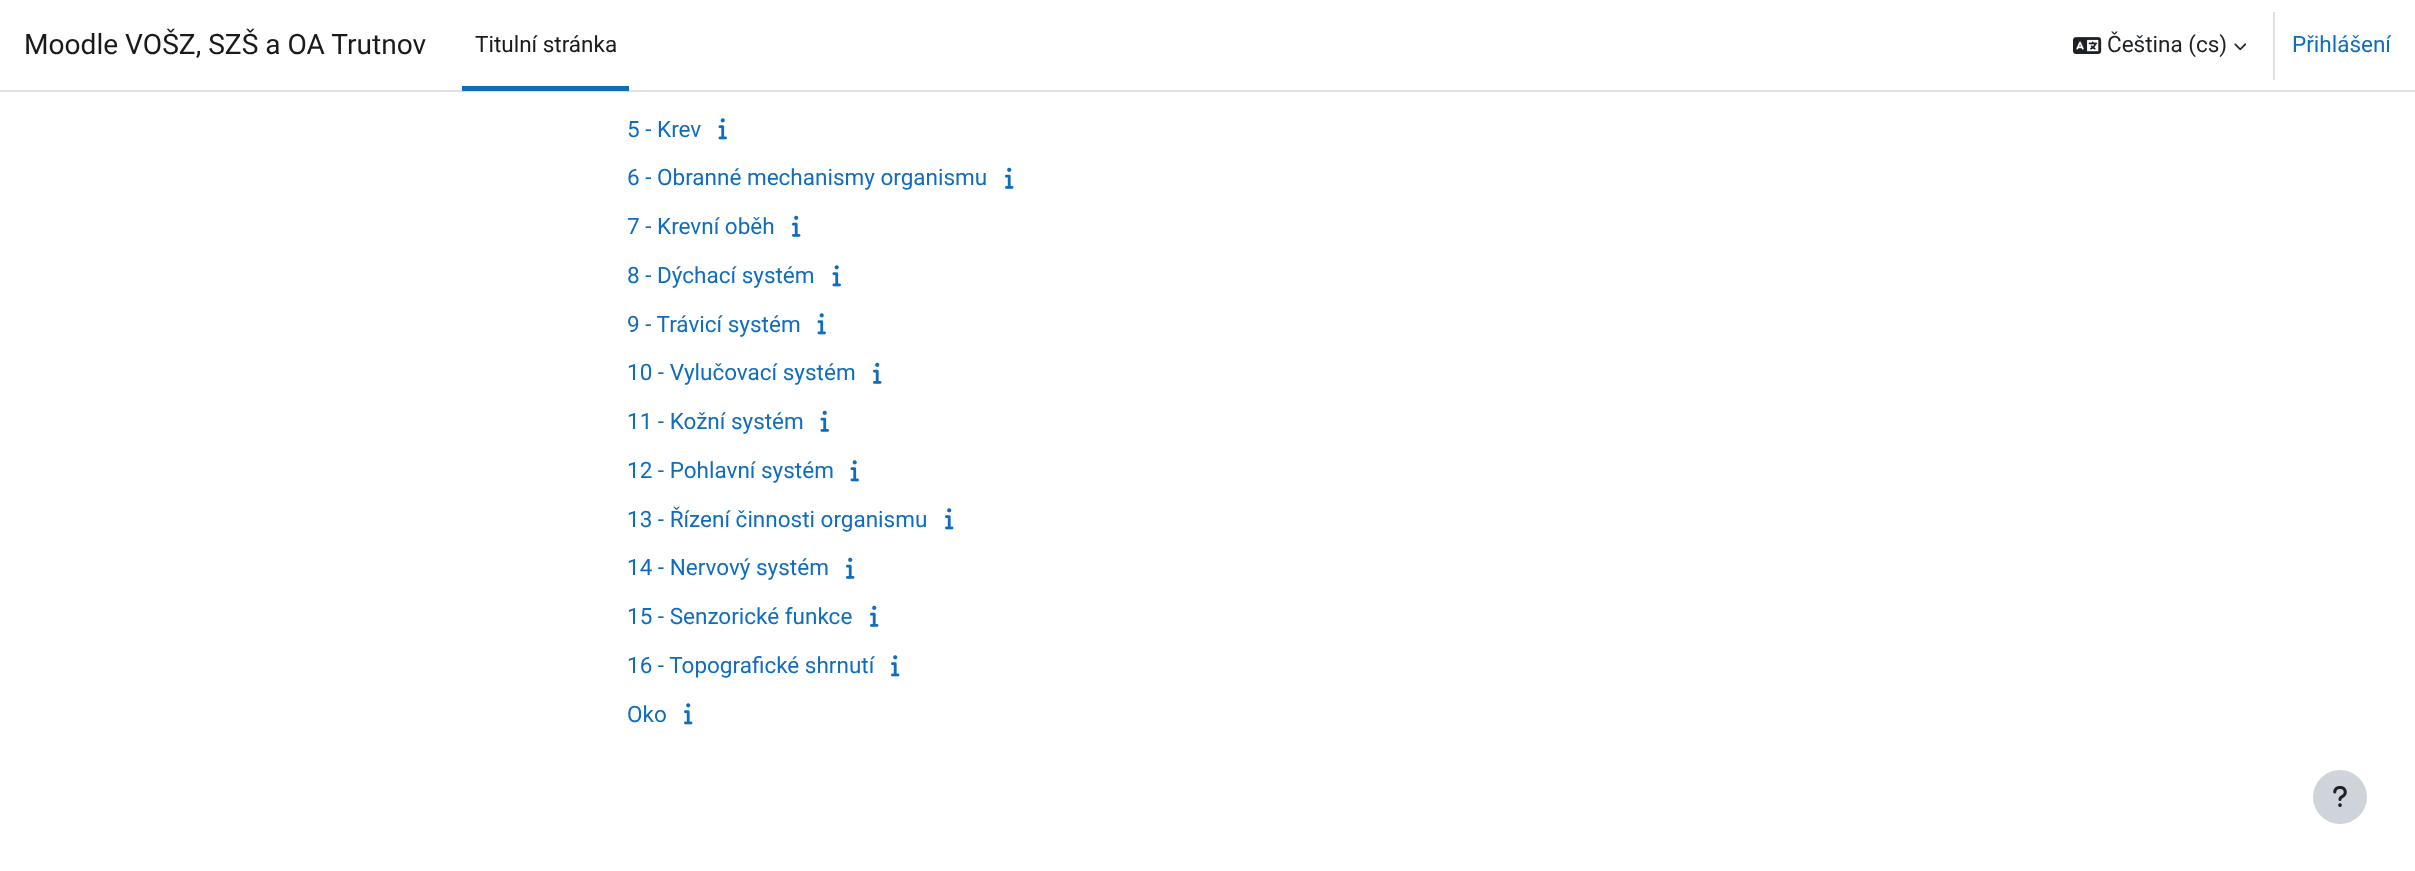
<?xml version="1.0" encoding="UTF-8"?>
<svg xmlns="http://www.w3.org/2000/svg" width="2415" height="871">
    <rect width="100%" height="100%" fill="#FFFFFF"/>
    <rect x="0" y="90" width="2415" height="2" fill="#DEE2E6"/>
    <text x="24" y="54" font-family="Roboto" font-size="28.1" fill="#1A1A1A">Moodle VOŠZ, SZŠ a OA Trutnov</text>
    <rect x="462" y="86" width="167" height="5" fill="#0F6CBF"/>
    <text x="475" y="52" font-family="Roboto" font-size="22.5" fill="#1A1A1A">Titulní stránka</text>
    <image x="2073" y="37" width="29" height="17" href="img_01.png"/>
    <text x="2107" y="52" font-family="Roboto" font-size="22.5" fill="#1D2125">Čeština (cs)</text>
    <image x="2234" y="43" width="13" height="8" href="img_02.png"/>
    <rect x="2273" y="12" width="2" height="68" fill="#DEE2E6"/>
    <text x="2292" y="52" font-family="Roboto" font-size="22.5" fill="#0F6CBF">Přihlášení</text>
    <text x="627" y="137" font-family="Roboto" font-size="22.5" fill="#0F6CBF">5 - Krev</text>
    <image x="718" y="118" width="9" height="22" href="img_03.png"/>
    <text x="627" y="185" font-family="Roboto" font-size="22.5" fill="#0F6CBF">6 - Obranné mechanismy organismu</text>
    <image x="1005" y="167" width="9" height="22" href="img_04.png"/>
    <text x="627" y="234" font-family="Roboto" font-size="22.5" fill="#0F6CBF">7 - Krevní oběh</text>
    <image x="792" y="215" width="9" height="22" href="img_04.png"/>
    <text x="627" y="283" font-family="Roboto" font-size="22.5" fill="#0F6CBF">8 - Dýchací systém</text>
    <image x="832" y="265" width="9" height="22" href="img_03.png"/>
    <text x="627" y="332" font-family="Roboto" font-size="22.5" fill="#0F6CBF">9 - Trávicí systém</text>
    <image x="817" y="313" width="9" height="22" href="img_03.png"/>
    <text x="627" y="380" font-family="Roboto" font-size="22.5" fill="#0F6CBF">10 - Vylučovací systém</text>
    <image x="873" y="362" width="9" height="22" href="img_04.png"/>
    <text x="627" y="429" font-family="Roboto" font-size="22.5" fill="#0F6CBF">11 - Kožní systém</text>
    <image x="820" y="410" width="9" height="22" href="img_05.png"/>
    <text x="627" y="478" font-family="Roboto" font-size="22.5" fill="#0F6CBF">12 - Pohlavní systém</text>
    <image x="850" y="460" width="9" height="22" href="img_03.png"/>
    <text x="627" y="527" font-family="Roboto" font-size="22.5" fill="#0F6CBF">13 - Řízení činnosti organismu</text>
    <image x="945" y="508" width="9" height="22" href="img_06.png"/>
    <text x="627" y="575" font-family="Roboto" font-size="22.5" fill="#0F6CBF">14 - Nervový systém</text>
    <image x="846" y="557" width="9" height="22" href="img_04.png"/>
    <text x="627" y="624" font-family="Roboto" font-size="22.5" fill="#0F6CBF">15 - Senzorické funkce</text>
    <image x="870" y="605" width="9" height="22" href="img_04.png"/>
    <text x="627" y="673" font-family="Roboto" font-size="22.5" fill="#0F6CBF">16 - Topografické shrnutí</text>
    <image x="891" y="655" width="9" height="22" href="img_06.png"/>
    <text x="627" y="722" font-family="Roboto" font-size="22.5" fill="#0F6CBF">Oko</text>
    <image x="684" y="703" width="9" height="22" href="img_06.png"/>
    <circle cx="2340" cy="797" r="27" fill="#CED4DA"/>
    <image x="2333" y="786" width="14" height="21" href="img_07.png"/>
</svg>
